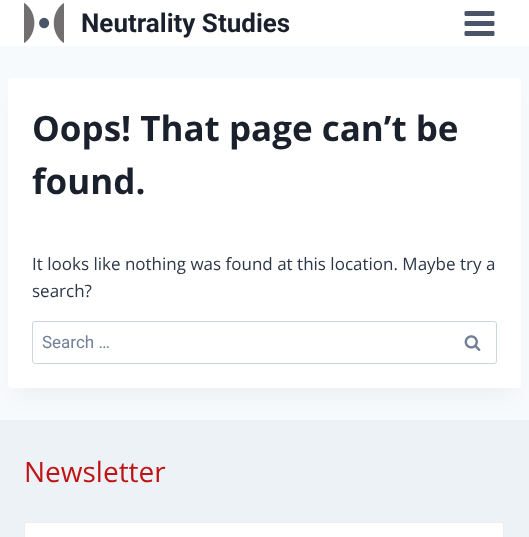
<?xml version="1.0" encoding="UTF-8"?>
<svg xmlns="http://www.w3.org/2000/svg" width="529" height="537">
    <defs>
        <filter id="blur1" x="-50%" y="-200%" width="200%" height="500%"><feGaussianBlur stdDeviation="12.5"/></filter>
    </defs>
    <rect width="100%" height="100%" fill="#F7FAFC"/>
    <rect x="0" y="0" width="529" height="46" fill="#FFFFFF"/>
    <image x="24" y="3" width="40" height="40" href="img_01.png"/>
    <text x="81" y="32" font-family="Roboto" font-size="26" font-weight="700" fill="#1A202C">Neutrality Studies</text>
    <image x="464" y="11" width="31" height="25" href="img_02.png"/>
    <rect x="0" y="420" width="529" height="117" fill="#EDF2F7"/>
    <rect x="18" y="103" width="493" height="290" fill="#000000" fill-opacity="0.05" filter="url(#blur1)"/>
    <rect x="8" y="78" width="513" height="310" rx="4" fill="#FFFFFF"/>
    <text font-family="Open Sans" font-size="35" font-weight="700" fill="#1A202C">
        <tspan x="32" y="141">Oops! That page can’t be</tspan>
        <tspan x="32" y="194">found.</tspan>
    </text>
    <text font-family="Open Sans" font-size="17" fill="#2D3748">
        <tspan x="32" y="270">It looks like nothing was found at this location. Maybe try a</tspan>
        <tspan x="32" y="297">search?</tspan>
    </text>
    <rect x="32.5" y="321.5" width="464" height="42" rx="2.5" fill="none" stroke="#CBD5E0"/>
    <text x="42" y="348" font-family="Roboto" font-size="17" fill="#718096">Search …</text>
    <image x="464" y="335" width="17" height="16" href="img_03.png"/>
    <text x="24" y="482" font-family="Open Sans" font-size="28" fill="#C01414">Newsletter</text>
    <rect x="24.5" y="522.5" width="479" height="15" fill="#FFFFFF" stroke="#EEEEEE"/>
</svg>
